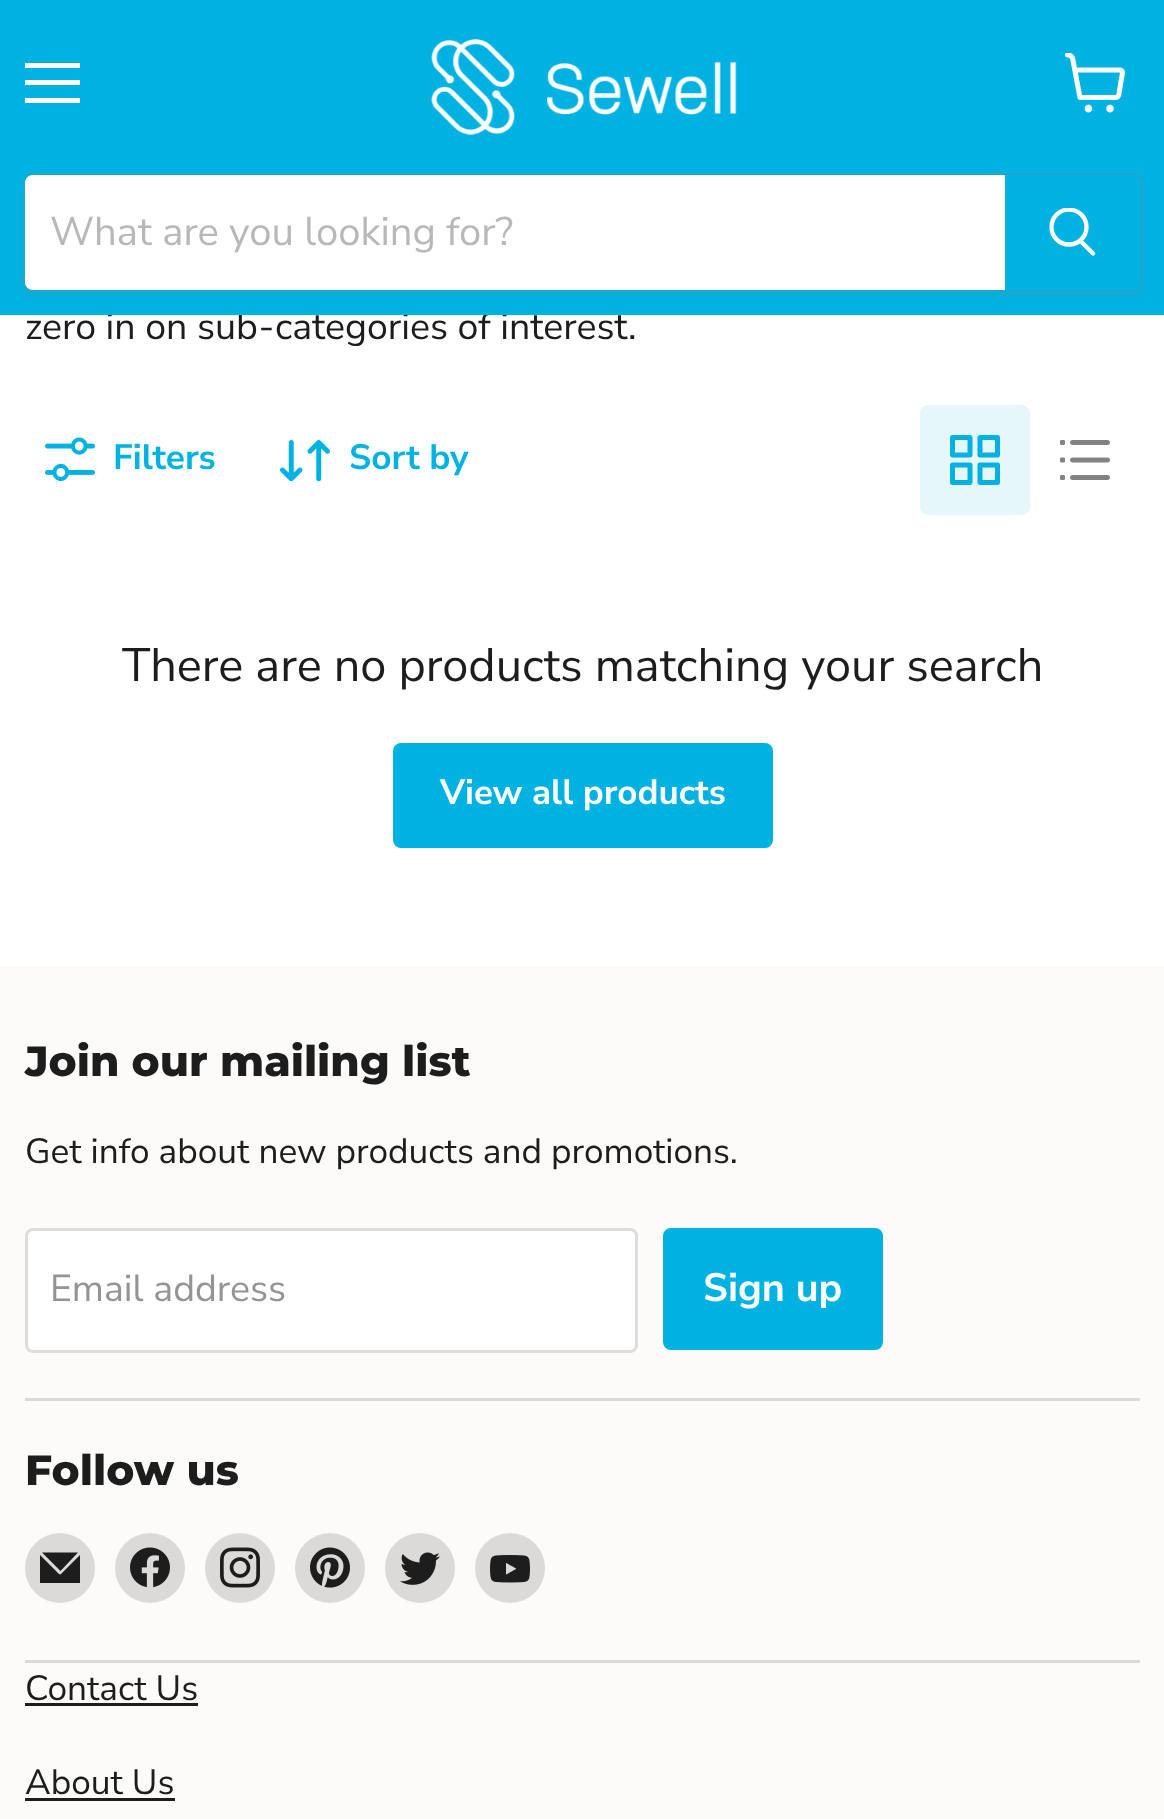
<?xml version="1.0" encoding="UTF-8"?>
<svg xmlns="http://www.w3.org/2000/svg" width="1164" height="1819">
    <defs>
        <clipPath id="clip1"><path d="M 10 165 H 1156 V 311 H 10 Z M 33 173 H 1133 C 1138.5 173 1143 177.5 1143 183 V 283 C 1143 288.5 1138.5 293 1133 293 H 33 C 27.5 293 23 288.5 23 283 V 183 C 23 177.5 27.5 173 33 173 Z" clip-rule="evenodd"/></clipPath>
        <filter id="blur1" x="-50%" y="-200%" width="200%" height="500%"><feGaussianBlur stdDeviation="4"/></filter>
        <clipPath id="clip2"><rect x="1048" y="208" width="50" height="52"/></clipPath>
    </defs>
    <rect width="100%" height="100%" fill="#FFFFFF"/>
    <text x="25" y="339" font-family="Nunito Sans" font-size="37.5" fill="#1D1D1D">zero in on sub-categories of interest.</text>
    <rect x="0" y="0" width="1164" height="315" fill="#00B2E2"/>
    <rect x="25" y="63" width="55" height="5" fill="#FFFFFF"/>
    <rect x="25" y="80" width="55" height="5" fill="#FFFFFF"/>
    <rect x="25" y="98" width="55" height="5" fill="#FFFFFF"/>
    <image x="1065" y="53" width="60" height="60" href="img_01.png"/>
    <image x="431" y="39" width="306" height="97" href="img_02.png"/>
    <g clip-path="url(#clip1)">
        <rect x="23" y="178" width="1120" height="120" rx="10" fill="#808080" fill-opacity="0.11" filter="url(#blur1)"/>
    </g>
    <rect x="24.5" y="174.5" width="1117" height="117" rx="8.5" fill="none" stroke="#808080" stroke-opacity="0.2" stroke-width="3"/>
    <path d="M 33 175 H 1005 V 290 H 33 C 28.5 290 25 286.5 25 282 V 183 C 25 178.5 28.5 175 33 175 Z" fill="#FFFFFF"/>
    <text x="50" y="245" font-family="Nunito Sans" font-size="40" fill="#B8B8B8">What are you looking for?</text>
    <path d="M 1006.5 176.5 H 1132 C 1135.5 176.5 1138.5 179.5 1138.5 183 V 282 C 1138.5 285.5 1135.5 288.5 1132 288.5 H 1006.5 Z" fill="#00B2E2" stroke="#00B2E2" stroke-width="3"/>
    <path d="M 1093 253.5 L 1081 241.5" fill="none" stroke="#FFFFFF" stroke-width="4.3" stroke-linecap="round"/>
    <g clip-path="url(#clip2)">
        <circle cx="1069" cy="227" r="17.5" fill="none" stroke="#FFFFFF" stroke-width="4.3"/>
    </g>
    <image x="45" y="437" width="50" height="44" href="img_03.png"/>
    <text x="113" y="469" font-family="Nunito Sans" font-size="35.2" font-weight="700" fill="#00B2E2">Filters</text>
    <image x="280" y="440" width="50" height="42" href="img_04.png"/>
    <text x="349" y="469" font-family="Nunito Sans" font-size="35.2" font-weight="700" fill="#00B2E2">Sort by</text>
    <rect x="920" y="405" width="110" height="110" rx="8" fill="#E6F7FC"/>
    <image x="950" y="435" width="50" height="50" href="img_05.png"/>
    <image x="1060" y="440" width="50" height="40" href="img_06.png"/>
    <text x="122" y="681" font-family="Nunito Sans" font-size="46.9" fill="#1D1D1D">There are no products matching your search</text>
    <rect x="394.5" y="744.5" width="377" height="102" rx="6.5" fill="#00B2E2" stroke="#00B2E2" stroke-width="3"/>
    <text x="440" y="804" font-family="Nunito Sans" font-size="35" font-weight="700" fill="#FFFFFF">View all products</text>
    <rect x="0" y="965" width="1164" height="854" fill="#FCFBF9"/>
    <rect x="25" y="1398" width="1115" height="3" fill="#DBDAD8"/>
    <text x="25" y="1076" font-family="Montserrat" font-size="42.25" font-weight="800" fill="#1D1D1D">Join our mailing list</text>
    <text x="25" y="1163" font-family="Nunito Sans" font-size="35.2" fill="#1D1D1D">Get info about new products and promotions.</text>
    <rect x="26.5" y="1229.5" width="610" height="122" rx="6.5" fill="#FFFFFF" stroke="#DDDDDD" stroke-width="3"/>
    <text x="50" y="1301" font-family="Nunito Sans" font-size="37.5" fill="#949494">Email address</text>
    <rect x="664.5" y="1229.5" width="217" height="119" rx="6.5" fill="#00B2E2" stroke="#00B2E2" stroke-width="3"/>
    <text x="703" y="1301" font-family="Nunito Sans" font-size="39.5" font-weight="700" fill="#FFFFFF">Sign up</text>
    <rect x="25" y="1660" width="1115" height="3" fill="#DBDAD8"/>
    <text x="25" y="1485" font-family="Montserrat" font-size="42.25" font-weight="800" fill="#1D1D1D">Follow us</text>
    <circle cx="60" cy="1568" r="35" fill="#DBDAD8"/>
    <path d="M 61 1574 C 60 1576 56 1571 56 1571 L 40 1555 V 1583 H 80 V 1555 Z" fill="#1D1D1D"/>
    <path d="M 78 1552.5 H 42 L 60.5 1571 Z" fill="#1D1D1D"/>
    <circle cx="150" cy="1568" r="35" fill="#DBDAD8"/>
    <image x="130" y="1547" width="40" height="41" href="img_07.png"/>
    <circle cx="240" cy="1568" r="35" fill="#DBDAD8"/>
    <image x="220" y="1547" width="40" height="41" href="img_08.png"/>
    <circle cx="330" cy="1568" r="35" fill="#DBDAD8"/>
    <image x="310" y="1547" width="40" height="41" href="img_09.png"/>
    <circle cx="420" cy="1568" r="35" fill="#DBDAD8"/>
    <image x="400" y="1552" width="40" height="33" href="img_10.png"/>
    <circle cx="510" cy="1568" r="35" fill="#DBDAD8"/>
    <image x="490" y="1555" width="40" height="28" href="img_11.png"/>
    <text x="25" y="1700" font-family="Nunito Sans" font-size="35.2" fill="#1D1D1D">Contact Us</text>
    <rect x="25" y="1703" width="173" height="3" fill="#1D1D1D"/>
    <text x="25" y="1794" font-family="Nunito Sans" font-size="35.2" fill="#1D1D1D">About Us</text>
    <rect x="25" y="1798" width="150" height="3" fill="#1D1D1D"/>
</svg>
